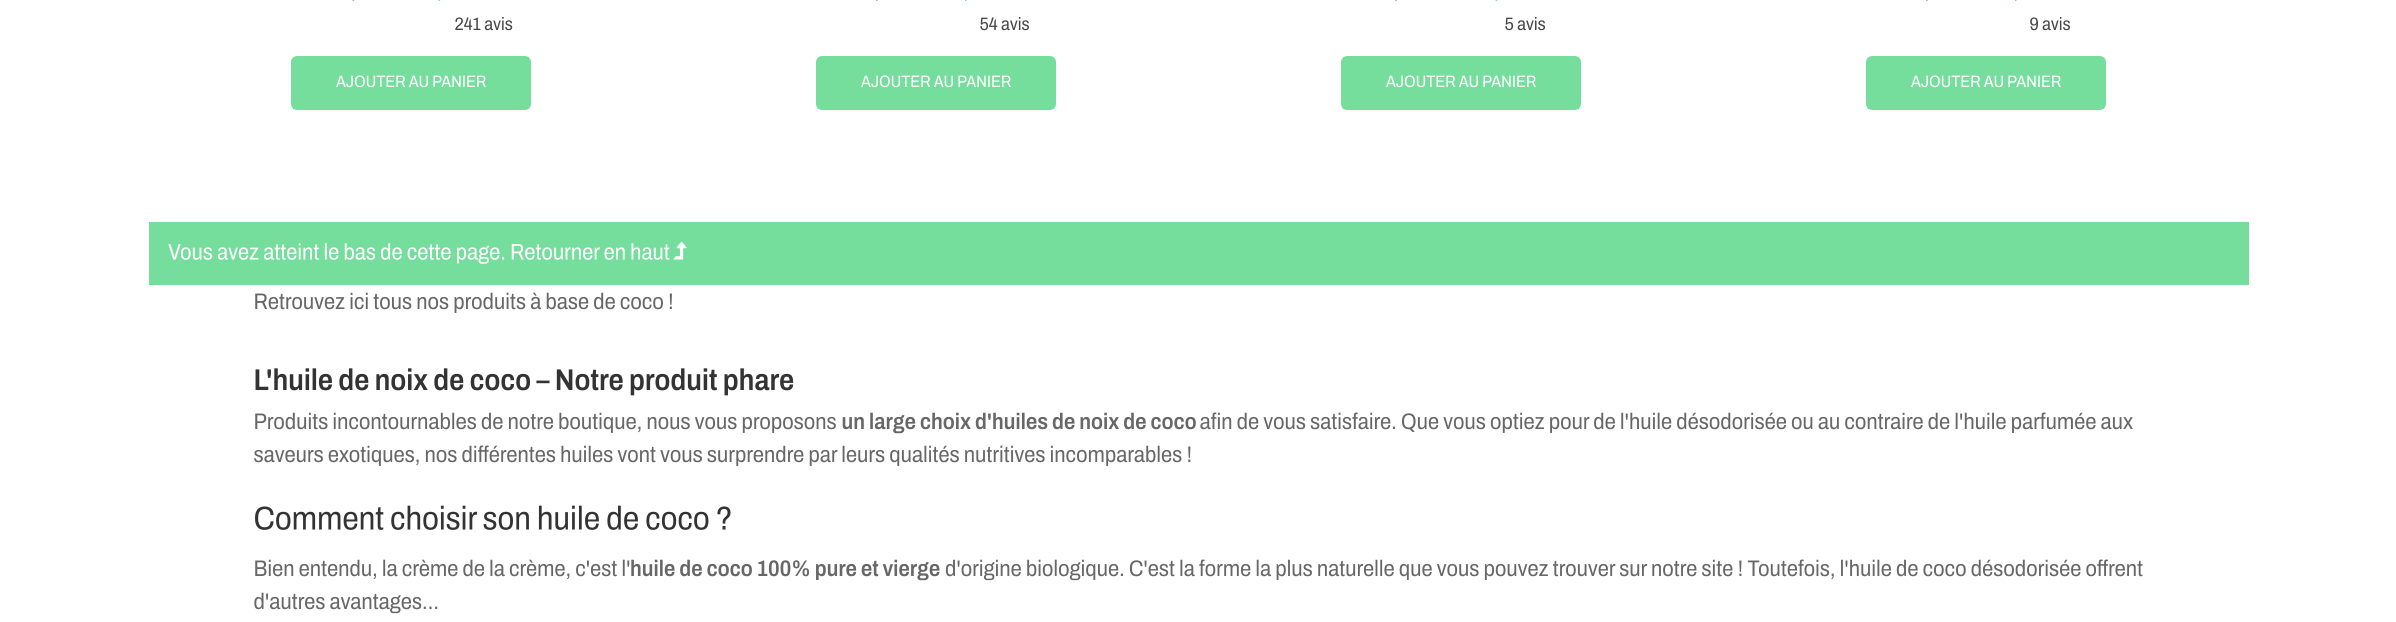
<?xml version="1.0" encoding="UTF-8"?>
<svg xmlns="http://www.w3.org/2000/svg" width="2396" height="622">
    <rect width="100%" height="100%" fill="#FFFFFF"/>
    <image x="352" y="0" width="3" height="1" href="img_01.png"/>
    <image x="438" y="0" width="3" height="1" href="img_02.png"/>
    <image x="455" y="17" width="58" height="14" href="img_03.png"/>
    <rect x="291" y="56" width="240" height="54" rx="6" fill="#75DE9C"/>
    <image x="336" y="75" width="150" height="13" href="img_04.png"/>
    <image x="876" y="0" width="2" height="1" href="img_05.png"/>
    <image x="965" y="0" width="2" height="1" href="img_06.png"/>
    <image x="980" y="17" width="49" height="14" href="img_07.png"/>
    <rect x="816" y="56" width="240" height="54" rx="6" fill="#75DE9C"/>
    <image x="861" y="75" width="150" height="13" href="img_04.png"/>
    <image x="1395" y="0" width="2" height="1" href="img_05.png"/>
    <image x="1495" y="0" width="3" height="1" href="img_08.png"/>
    <image x="1505" y="17" width="41" height="14" href="img_09.png"/>
    <rect x="1341" y="56" width="240" height="54" rx="6" fill="#75DE9C"/>
    <image x="1386" y="75" width="150" height="13" href="img_04.png"/>
    <image x="1926" y="0" width="2" height="1" href="img_05.png"/>
    <image x="2015" y="0" width="2" height="1" href="img_06.png"/>
    <image x="2030" y="17" width="40" height="14" href="img_10.png"/>
    <rect x="1866" y="56" width="240" height="54" rx="6" fill="#75DE9C"/>
    <image x="1911" y="75" width="150" height="13" href="img_04.png"/>
    <rect x="149" y="222" width="2100" height="63" fill="#75DE9C"/>
    <image x="168" y="243" width="337" height="21" href="img_11.png"/>
    <image x="511" y="243" width="159" height="17" href="img_12.png"/>
    <image x="673" y="241" width="14" height="19" href="img_13.png"/>
    <image x="255" y="292" width="417" height="21" href="img_14.png"/>
    <image x="255" y="368" width="539" height="28" href="img_15.png"/>
    <image x="255" y="412" width="581" height="21" href="img_16.png"/>
    <image x="842" y="412" width="354" height="22" href="img_17.png"/>
    <image x="1200" y="412" width="933" height="21" href="img_18.png"/>
    <image x="254" y="445" width="937" height="21" href="img_19.png"/>
    <image x="255" y="505" width="476" height="25" href="img_20.png"/>
    <image x="255" y="559" width="375" height="21" href="img_21.png"/>
    <image x="631" y="559" width="309" height="22" href="img_22.png"/>
    <image x="945" y="559" width="1198" height="22" href="img_23.png"/>
    <image x="254" y="592" width="184" height="22" href="img_24.png"/>
</svg>
